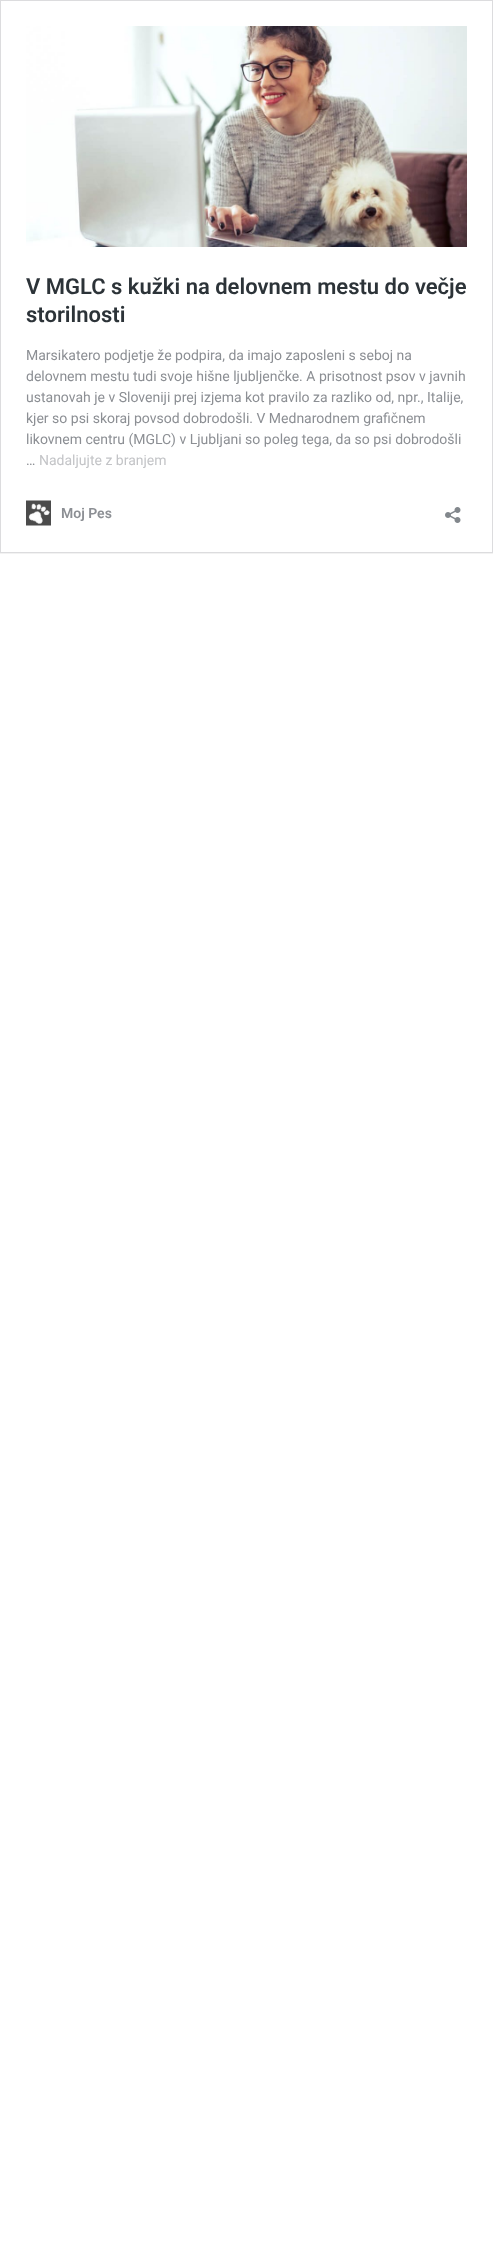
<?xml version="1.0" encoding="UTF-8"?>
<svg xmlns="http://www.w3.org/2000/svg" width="493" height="2243">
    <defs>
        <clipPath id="clip1"><rect x="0" y="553" width="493" height="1"/></clipPath>
        <filter id="blur1" x="-50%" y="-200%" width="200%" height="500%"><feGaussianBlur stdDeviation="0.5"/></filter>
    </defs>
    <rect width="100%" height="100%" fill="#FFFFFF"/>
    <g clip-path="url(#clip1)">
        <rect x="0" y="1" width="493" height="553" fill="#000000" fill-opacity="0.05" filter="url(#blur1)"/>
    </g>
    <rect x="0.5" y="0.5" width="492" height="552" fill="none" stroke="#DCDCDE"/>
    <image x="26" y="26" width="441" height="221" href="img_01.png"/>
    <text font-family="Roboto" font-size="22" font-weight="600" fill="#2C3338">
        <tspan x="26" y="294">V MGLC s kužki na delovnem mestu do večje</tspan>
        <tspan x="26" y="322">storilnosti</tspan>
    </text>
    <text font-family="Roboto" font-size="14" fill="#8C8F94">
        <tspan x="26" y="360">Marsikatero podjetje že podpira, da imajo zaposleni s seboj na</tspan>
        <tspan x="26" y="381">delovnem mestu tudi svoje hišne ljubljenčke. A prisotnost psov v javnih</tspan>
        <tspan x="26" y="402">ustanovah je v Sloveniji prej izjema kot pravilo za razliko od, npr., Italije,</tspan>
        <tspan x="26" y="423">kjer so psi skoraj povsod dobrodošli. V Mednarodnem grafičnem</tspan>
        <tspan x="26" y="444">likovnem centru (MGLC) v Ljubljani so poleg tega, da so psi dobrodošli</tspan>
        <tspan x="26" y="465">…</tspan>
    </text>
    <text x="39" y="465" font-family="Roboto" font-size="14" fill="#C3C4C7">Nadaljujte z branjem</text>
    <image x="26" y="500" width="25" height="26" href="img_02.png"/>
    <text x="61" y="518" font-family="Roboto" font-size="14" font-weight="600" fill="#8C8F94">Moj Pes</text>
    <image x="445" y="507" width="16" height="16" href="img_03.png"/>
</svg>
